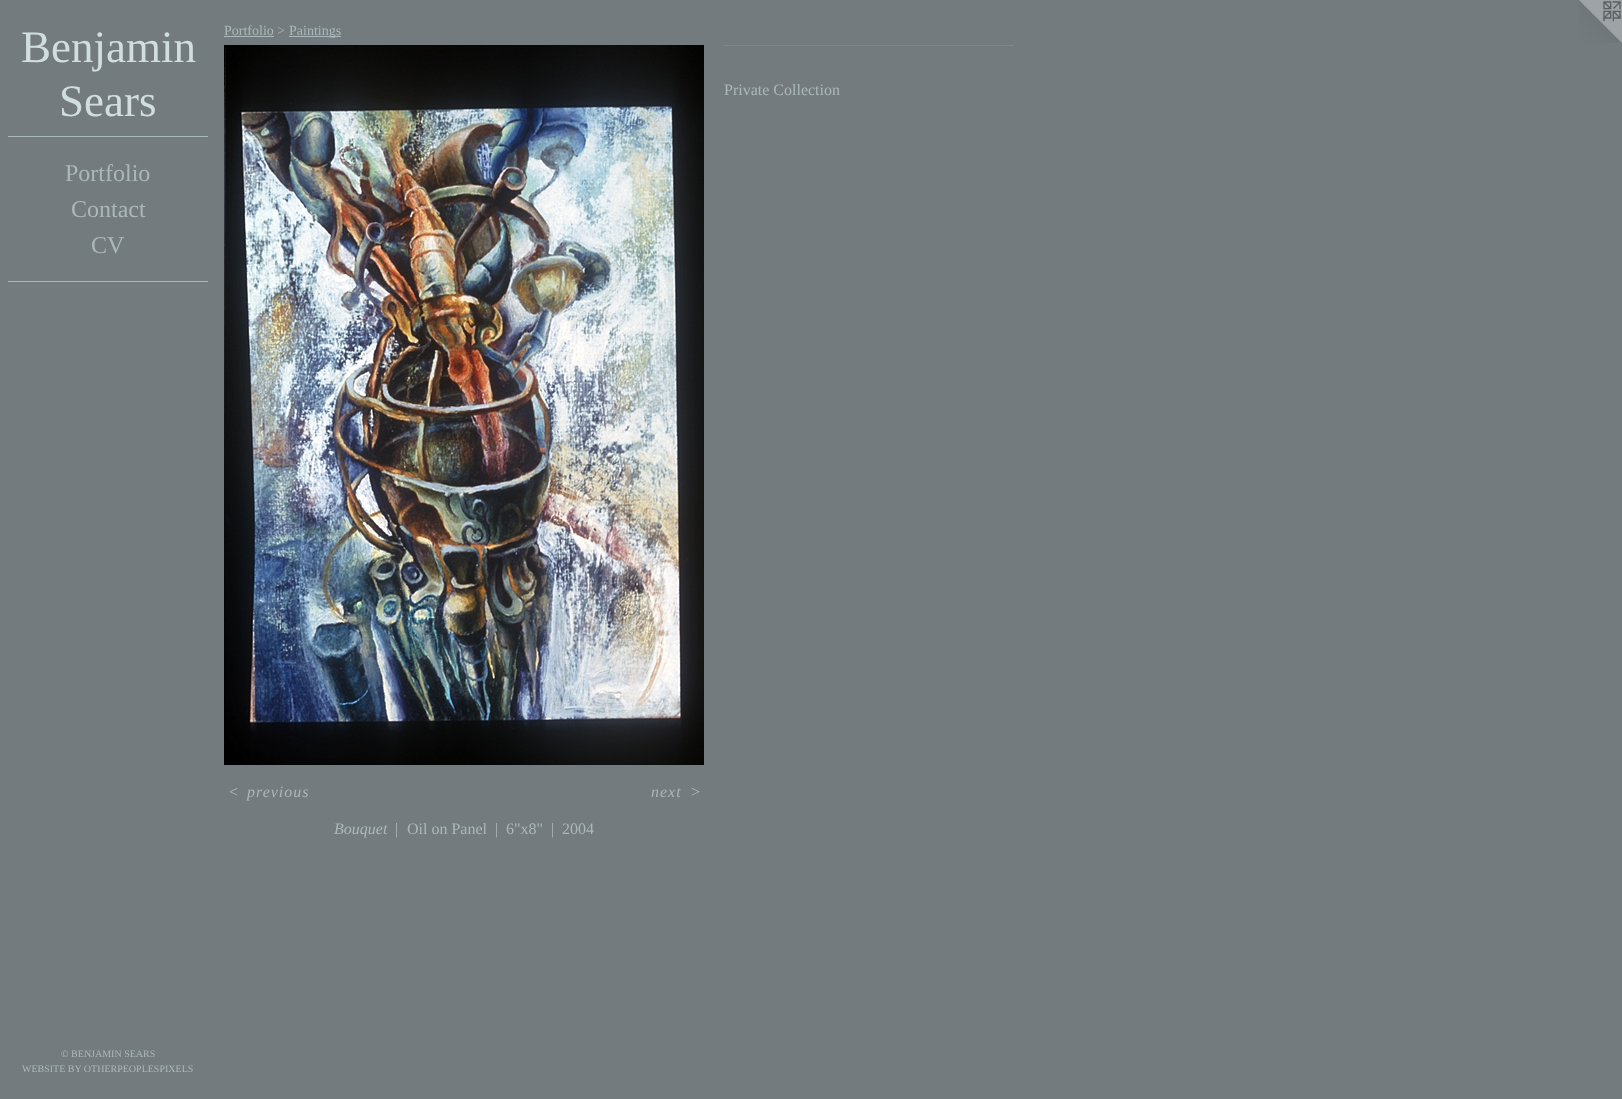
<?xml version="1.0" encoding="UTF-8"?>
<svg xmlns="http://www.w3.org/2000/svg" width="1622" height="1099">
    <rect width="100%" height="100%" fill="#747B7E"/>
    <text x="21" y="62" font-family="Liberation Serif" font-size="45" fill="#D1DEE1">Benjamin</text>
    <text x="59" y="116" font-family="Liberation Serif" font-size="45" fill="#D1DEE1">Sears</text>
    <rect x="8" y="136" width="200" height="1" fill="#AAB8BB"/>
    <text x="65" y="181" font-family="Liberation Serif" font-size="24" fill="#AAB8BB">Portfolio</text>
    <text x="71" y="217" font-family="Liberation Serif" font-size="24" fill="#AAB8BB">Contact</text>
    <text x="91" y="253" font-family="Liberation Serif" font-size="24" fill="#AAB8BB">CV</text>
    <rect x="8" y="281" width="200" height="1" fill="#AAB8BB"/>
    <text x="61" y="1057" font-family="Liberation Serif" font-size="10" fill="#AAB8BB">© BENJAMIN SEARS</text>
    <text x="22" y="1072" font-family="Liberation Serif" font-size="10" fill="#AAB8BB">WEBSITE BY OTHERPEOPLESPIXELS</text>
    <text x="224" y="35" font-family="Liberation Serif" font-size="14" fill="#AAB8BB">Portfolio &gt;</text>
    <rect x="224" y="36" width="50" height="1" fill="#AAB8BB"/>
    <rect x="289" y="36" width="52" height="1" fill="#AAB8BB"/>
    <text x="289" y="35" font-family="Liberation Serif" font-size="14" fill="#AAB8BB">Paintings</text>
    <rect x="724" y="45" width="290" height="1" fill="#7F878A"/>
    <text x="724" y="95" font-family="Liberation Serif" font-size="16" fill="#AAB8BB">Private Collection</text>
    <image x="224" y="45" width="480" height="720" href="img_01.png"/>
    <text x="228" y="797" font-family="Liberation Serif" font-size="16" font-style="italic" letter-spacing="1" fill="#AAB8BB">&lt;</text>
    <text x="247" y="797" font-family="Liberation Serif" font-size="16" font-style="italic" letter-spacing="1" fill="#AAB8BB">previous</text>
    <text x="651" y="797" font-family="Liberation Serif" font-size="16" font-style="italic" letter-spacing="1" fill="#AAB8BB">next</text>
    <text x="690" y="797" font-family="Liberation Serif" font-size="16" font-style="italic" letter-spacing="1" fill="#AAB8BB">&gt;</text>
    <text x="334" y="834" font-family="Liberation Serif" font-size="16" font-style="italic" fill="#AAB8BB">Bouquet</text>
    <text x="395" y="834" font-family="Liberation Serif" font-size="16" fill="#AAB8BB">|</text>
    <text x="407" y="834" font-family="Liberation Serif" font-size="16" fill="#AAB8BB">Oil on Panel</text>
    <text x="495" y="834" font-family="Liberation Serif" font-size="16" fill="#AAB8BB">|</text>
    <text x="506" y="834" font-family="Liberation Serif" font-size="16" fill="#AAB8BB">6"x8"</text>
    <text x="551" y="834" font-family="Liberation Serif" font-size="16" fill="#AAB8BB">|</text>
    <text x="562" y="834" font-family="Liberation Serif" font-size="16" fill="#AAB8BB">2004</text>
    <image x="1579" y="0" width="43" height="43" href="img_02.png"/>
</svg>
